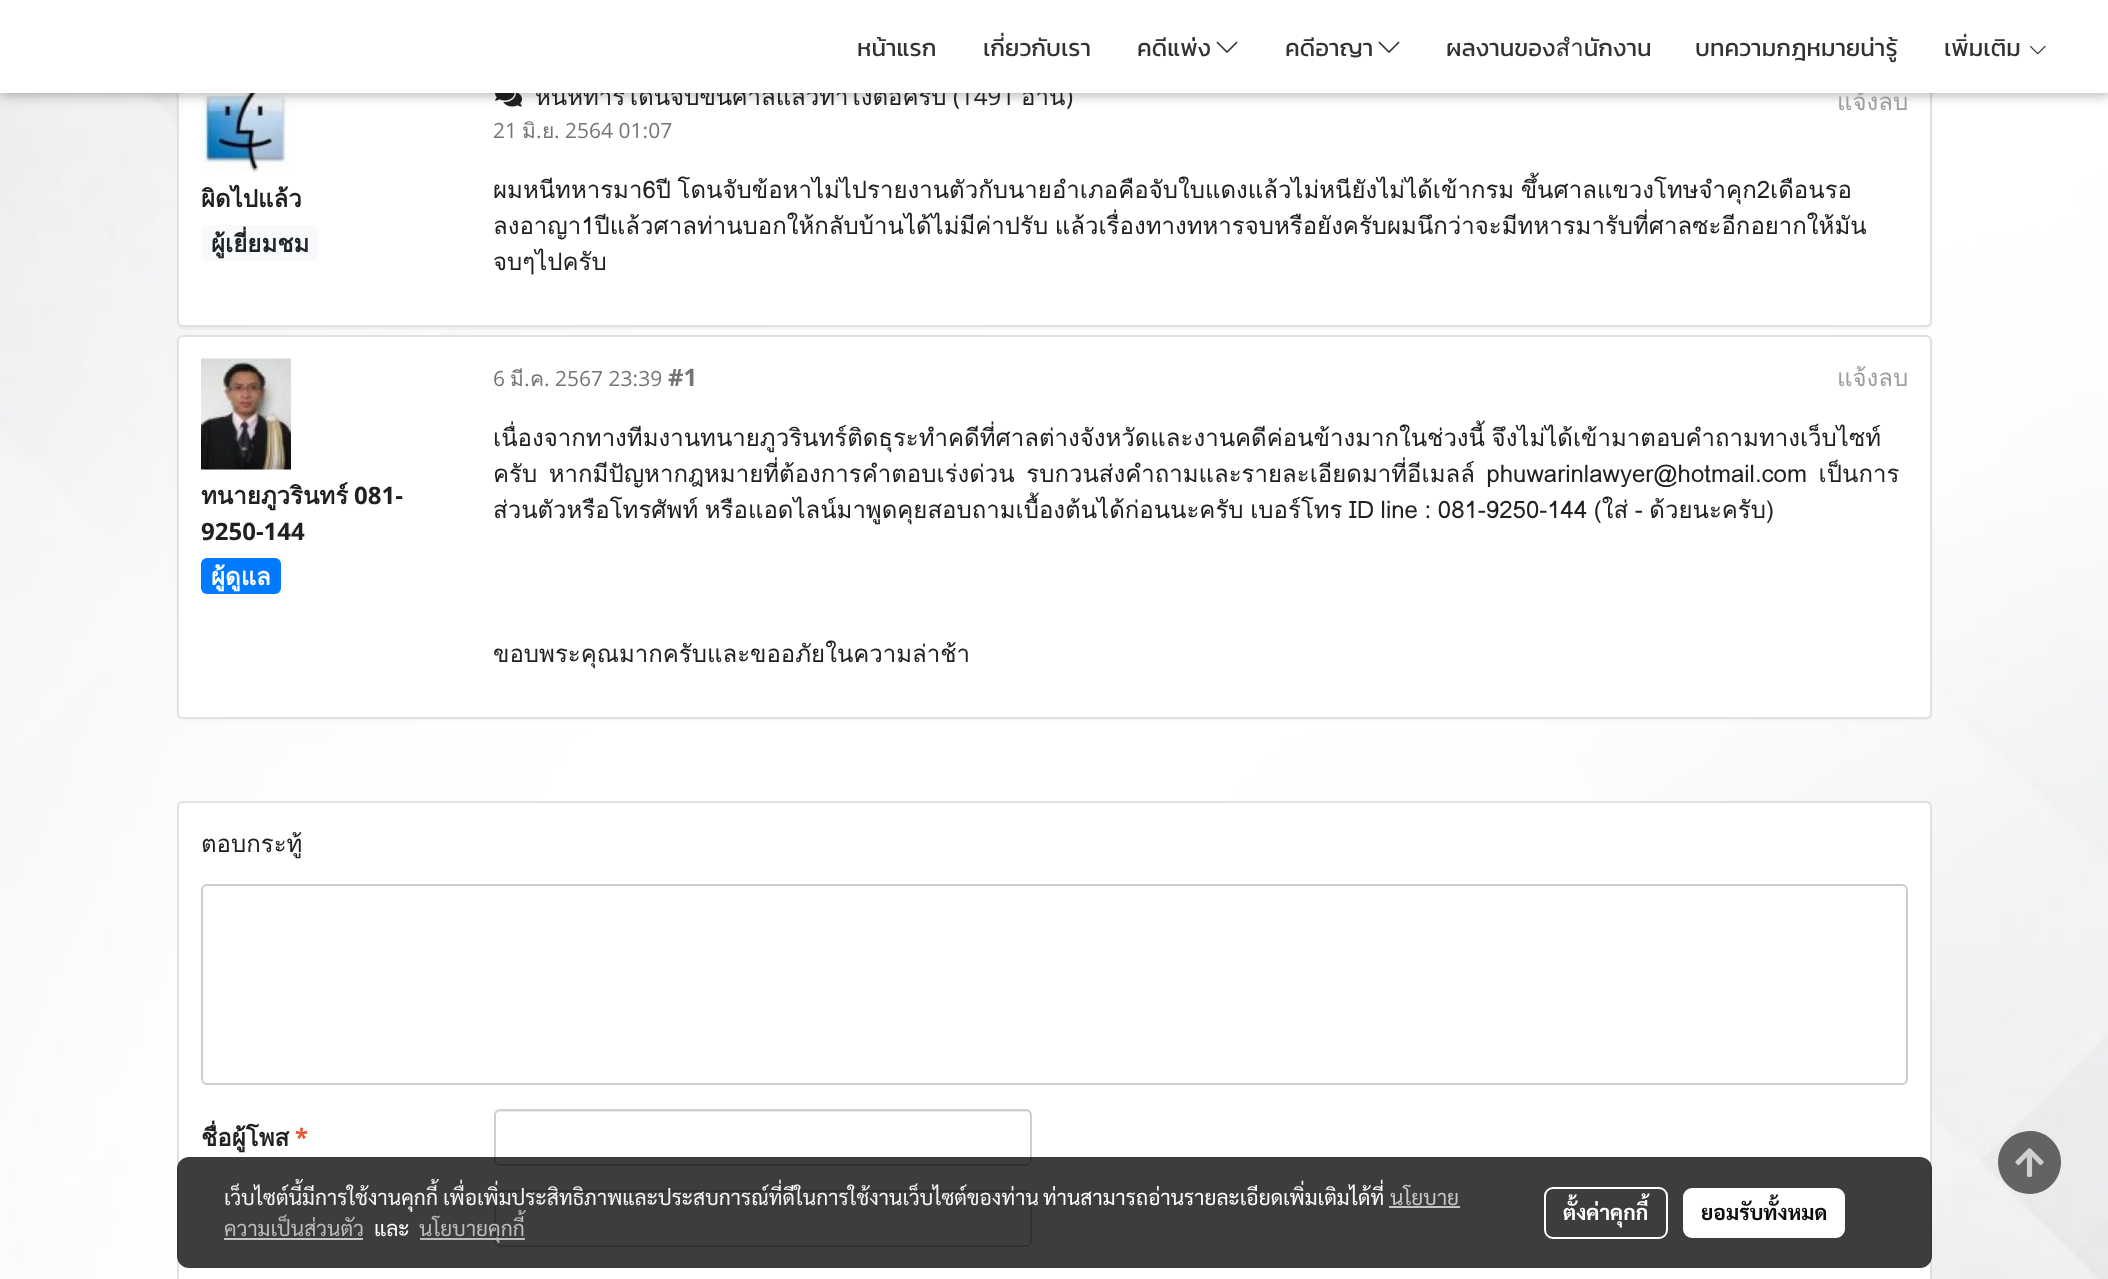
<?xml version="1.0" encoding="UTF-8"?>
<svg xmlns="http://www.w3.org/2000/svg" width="2108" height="1279">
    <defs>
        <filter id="blur1" x="-50%" y="-200%" width="200%" height="500%"><feGaussianBlur stdDeviation="1"/></filter>
        <filter id="blur2" x="-50%" y="-200%" width="200%" height="500%"><feGaussianBlur stdDeviation="7.5"/></filter>
        <filter id="blur3" x="-50%" y="-200%" width="200%" height="500%"><feGaussianBlur stdDeviation="4"/></filter>
    </defs>
    <rect width="100%" height="100%" fill="#FFFFFF"/>
    <image x="0" y="93" width="2108" height="1186" href="img_01.png"/>
    <rect x="177" y="60" width="1755" height="269" rx="6" fill="#000000" fill-opacity="0.05" filter="url(#blur1)"/>
    <rect x="178" y="60" width="1753" height="266" rx="5" fill="#FFFFFF" stroke="#DEE2E6" stroke-width="2"/>
    <image x="201" y="93" width="90" height="80" href="img_04.png"/>
    <image x="495" y="93" width="27" height="14" href="img_05.png"/>
    <rect x="0" y="3" width="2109" height="93" fill="#000000" fill-opacity="0.12" filter="url(#blur2)"/>
    <rect x="0" y="3" width="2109" height="93" fill="#000000" fill-opacity="0.16" filter="url(#blur3)"/>
    <text x="535" y="105" font-family="Loma" font-size="24" fill="#212121">หนีหทารโดนจับขึ้นศาลแล้วทำไงต่อครับ</text>
    <text x="953" y="105" font-family="Open Sans" font-size="24" fill="#212121">(1491</text>
    <text x="1021" y="105" font-family="Loma" font-size="24" fill="#212121">อ่าน</text>
    <text x="1066" y="105" font-family="Open Sans" font-size="24" fill="#212121">)</text>
    <text x="1837" y="110" font-family="Loma" font-size="24" fill="#9E9E9E">แจ้งลบ</text>
    <rect x="0" y="0" width="2108" height="93" fill="#FFFFFF"/>
    <text x="857" y="56" font-family="Kanit" font-size="24" fill="#333333">หน้าแรก</text>
    <text x="983" y="56" font-family="Kanit" font-size="24" fill="#333333">เกี่ยวกับเรา</text>
    <text x="1137" y="56" font-family="Kanit" font-size="24" fill="#333333">คดีแพ่ง</text>
    <image x="1216" y="41" width="22" height="12" href="img_02.png"/>
    <text x="1285" y="56" font-family="Kanit" font-size="24" fill="#333333">คดีอาญา</text>
    <image x="1378" y="41" width="22" height="12" href="img_02.png"/>
    <text x="1446" y="56" font-family="Kanit" font-size="24" fill="#333333">ผลงานของสำนักงาน</text>
    <text x="1695" y="56" font-family="Kanit" font-size="24" fill="#333333">บทความกฎหมายน่ารู้</text>
    <text x="1944" y="56" font-family="Kanit" font-size="24" fill="#333333">เพิ่มเติม</text>
    <image x="2029" y="45" width="17" height="10" href="img_03.png"/>
    <text x="201" y="207" font-family="Loma" font-size="24" font-weight="700" fill="#212121">ผิดไปแล้ว</text>
    <rect x="201" y="225" width="117" height="36" rx="6" fill="#F8F9FA"/>
    <text x="211" y="252" font-family="Loma" font-size="24" font-weight="700" fill="#212529">ผู้เยี่ยมชม</text>
    <text x="493" y="138" font-family="Open Sans" font-size="21" fill="#757575">21</text>
    <text x="522" y="138" font-family="Loma" font-size="21" fill="#757575">มิ</text>
    <text x="536" y="138" font-family="Open Sans" font-size="21" fill="#757575">.</text>
    <text x="542" y="138" font-family="Loma" font-size="21" fill="#757575">ย</text>
    <text x="554" y="138" font-family="Open Sans" font-size="21" fill="#757575">. 2564 01:07</text>
    <text font-family="Loma" font-size="24" fill="#212121">
        <tspan x="493" y="198" word-spacing="-1.5">ผมหนีทหารมา6ปี โดนจับข้อหาไม่ไปรายงานตัวกับนายอำเภอคือจับใบแดงแล้วไม่หนียังไม่ได้เข้ากรม ขึ้นศาลแขวงโทษจำคุก2เดือนรอ</tspan>
        <tspan x="493" y="234" word-spacing="-1.5">ลงอาญา1ปีแล้วศาลท่านบอกให้กลับบ้านได้ไม่มีค่าปรับ แล้วเรื่องทางทหารจบหรือยังครับผมนึกว่าจะมีทหารมารับที่ศาลซะอีกอยากให้มัน</tspan>
        <tspan x="493" y="270">จบๆไปครับ</tspan>
    </text>
    <rect x="177" y="336" width="1755" height="384" rx="6" fill="#000000" fill-opacity="0.05" filter="url(#blur1)"/>
    <rect x="178" y="336" width="1753" height="382" rx="5" fill="#FFFFFF" stroke="#DEE2E6" stroke-width="2"/>
    <image x="201" y="358" width="90" height="112" href="img_06.png"/>
    <text x="201" y="504" font-family="Loma" font-size="24" font-weight="700" fill="#212121">ทนายภูวรินทร์</text>
    <text x="354" y="504" font-family="Open Sans" font-size="24" font-weight="700" fill="#212121">081-</text>
    <text x="201" y="540" font-family="Open Sans" font-size="24" font-weight="700" fill="#212121">9250-144</text>
    <rect x="201" y="558" width="80" height="36" rx="6" fill="#007BFF"/>
    <text x="211" y="585" font-family="Loma" font-size="24" font-weight="700" fill="#FFFFFF">ผู้ดูแล</text>
    <text x="493" y="386" font-family="Open Sans" font-size="21" fill="#757575">6</text>
    <text x="510" y="386" font-family="Loma" font-size="21" fill="#757575">มี</text>
    <text x="524" y="386" font-family="Open Sans" font-size="21" fill="#757575">.</text>
    <text x="530" y="386" font-family="Loma" font-size="21" fill="#757575">ค</text>
    <text x="544" y="386" font-family="Open Sans" font-size="21" fill="#757575">. 2567 23:39</text>
    <text x="668" y="386" font-family="Open Sans" font-size="24" font-weight="700" fill="#757575">#1</text>
    <text x="1837" y="386" font-family="Loma" font-size="24" fill="#9E9E9E">แจ้งลบ</text>
    <text font-family="Loma" font-size="24" fill="#212121">
        <tspan x="493" y="446" word-spacing="-1.5">เนื่องจากทางทีมงานทนายภูวรินทร์ติดธุระทำคดีที่ศาลต่างจังหวัดและงานคดีค่อนข้างมากในช่วงนี้ จึงไม่ได้เข้ามาตอบคำถามทางเว็บไซท์</tspan>
        <tspan x="493" y="482" word-spacing="3.5">ครับ หากมีปัญหากฎหมายที่ต้องการคำตอบเร่งด่วน รบกวนส่งคำถามและรายละเอียดมาที่อีเมลล์ phuwarinlawyer@hotmail.com เป็นการ</tspan>
        <tspan x="493" y="518" word-spacing="-1.5">ส่วนตัวหรือโทรศัพท์ หรือแอดไลน์มาพูดคุยสอบถามเบื้องต้นได้ก่อนนะครับ เบอร์โทร ID line : 081-9250-144 (ใส่ - ด้วยนะครับ)</tspan>
    </text>
    <text x="493" y="662" font-family="Loma" font-size="24" fill="#212121">ขอบพระคุณมากครับและขออภัยในความล่าช้า</text>
    <rect x="178" y="802" width="1753" height="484" rx="5" fill="#FFFFFF" stroke="#DEE2E6" stroke-width="2"/>
    <text x="201" y="852" font-family="Loma" font-size="24" fill="#212121">ตอบกระทู้</text>
    <path d="M 207 886 H 1902 C 1904 886 1906 889 1906 891 V 1081 C 1907 1080 1907 1079 1907 1078 V 890 C 1907 887 1905 885 1902 885 H 208 C 206 885 204 886 203 888 C 204 887 206 886 207 886 Z" fill="#ECECEC"/>
    <rect x="202" y="885" width="1705" height="199" rx="5" fill="none" stroke="#CDCED2" stroke-width="2"/>
    <text x="201" y="1146" font-family="Loma" font-size="24" font-weight="700" fill="#212121">ชื่อผู้โพส</text>
    <text x="295" y="1146" font-family="Open Sans" font-size="24" font-weight="700" fill="#E45735">*</text>
    <path d="M 500 1112 H 1026 C 1028 1112 1030 1114 1030 1116 V 1162 C 1031 1161 1031 1160 1031 1159 V 1115 C 1031 1112 1029 1110 1026 1110 H 500 C 497 1110 495 1112 495 1115 V 1116 C 495 1114 497 1112 500 1112 Z" fill="#ECECEC"/>
    <rect x="495" y="1110" width="536" height="55" rx="5" fill="none" stroke="#CDCED2" stroke-width="2"/>
    <path d="M 500 1192 H 1026 C 1028 1192 1030 1195 1030 1197 V 1243 C 1031 1242 1031 1241 1031 1240 V 1196 C 1031 1193 1029 1191 1026 1191 H 500 C 497 1191 495 1193 495 1196 V 1197 C 495 1195 497 1192 500 1192 Z" fill="#ECECEC"/>
    <rect x="495" y="1191" width="536" height="55" rx="5" fill="none" stroke="#CDCED2" stroke-width="2"/>
    <path d="M 2030 1131 C 2012 1131 1998 1145 1998 1162 C 1998 1180 2012 1194 2030 1194 C 2047 1194 2061 1180 2061 1162 C 2061 1145 2047 1131 2030 1131 Z" fill="#2B2A2A" fill-opacity="0.7"/>
    <image x="2015" y="1148" width="29" height="29" href="img_07.png"/>
    <rect x="177" y="1157" width="1755" height="111" rx="12" fill="#000000" fill-opacity="0.76"/>
    <text x="224" y="1205" font-family="Sarabun" font-size="21" fill="#F5F5F5">เว็บไซต์นี้มีการใช้งานคุกกี้ เพื่อเพิ่มประสิทธิภาพและประสบการณ์ที่ดีในการใช้งานเว็บไซต์ของท่าน</text>
    <text x="1043" y="1205" font-family="Sarabun" font-size="21" fill="#FFFFFF">ท่านสามารถอ่านรายละเอียดเพิ่มเติมได้ที่</text>
    <text x="1390" y="1205" font-family="Sarabun" font-size="21" fill="#C5C5C5">นโยบาย</text>
    <rect x="1389" y="1206" width="71" height="2" fill="#C5C5C5"/>
    <text x="224" y="1236" font-family="Sarabun" font-size="21" fill="#BBBBBB">ความเป็นส่วนตัว</text>
    <rect x="224" y="1238" width="139" height="2" fill="#C5C5C5"/>
    <text x="374" y="1236" font-family="Sarabun" font-size="21" fill="#FFFFFF">และ</text>
    <rect x="420" y="1238" width="105" height="2" fill="#C2C2C2" fill-opacity="0.95"/>
    <text x="419" y="1236" font-family="Sarabun" font-size="21" fill="#BBBBBB">นโยบายคุกกี้</text>
    <rect x="1545" y="1188" width="122" height="50" rx="8" fill="none" stroke="#FFFFFF" stroke-width="2"/>
    <text x="1563" y="1220" font-family="Sarabun" font-size="21" font-weight="700" fill="#FFFFFF">ตั้งค่าคุกกี้</text>
    <rect x="1683" y="1188" width="162" height="50" rx="9" fill="#FFFFFF"/>
    <text x="1701" y="1220" font-family="Sarabun" font-size="21" font-weight="700" fill="#0D0D0D">ยอมรับทั้งหมด</text>
</svg>
